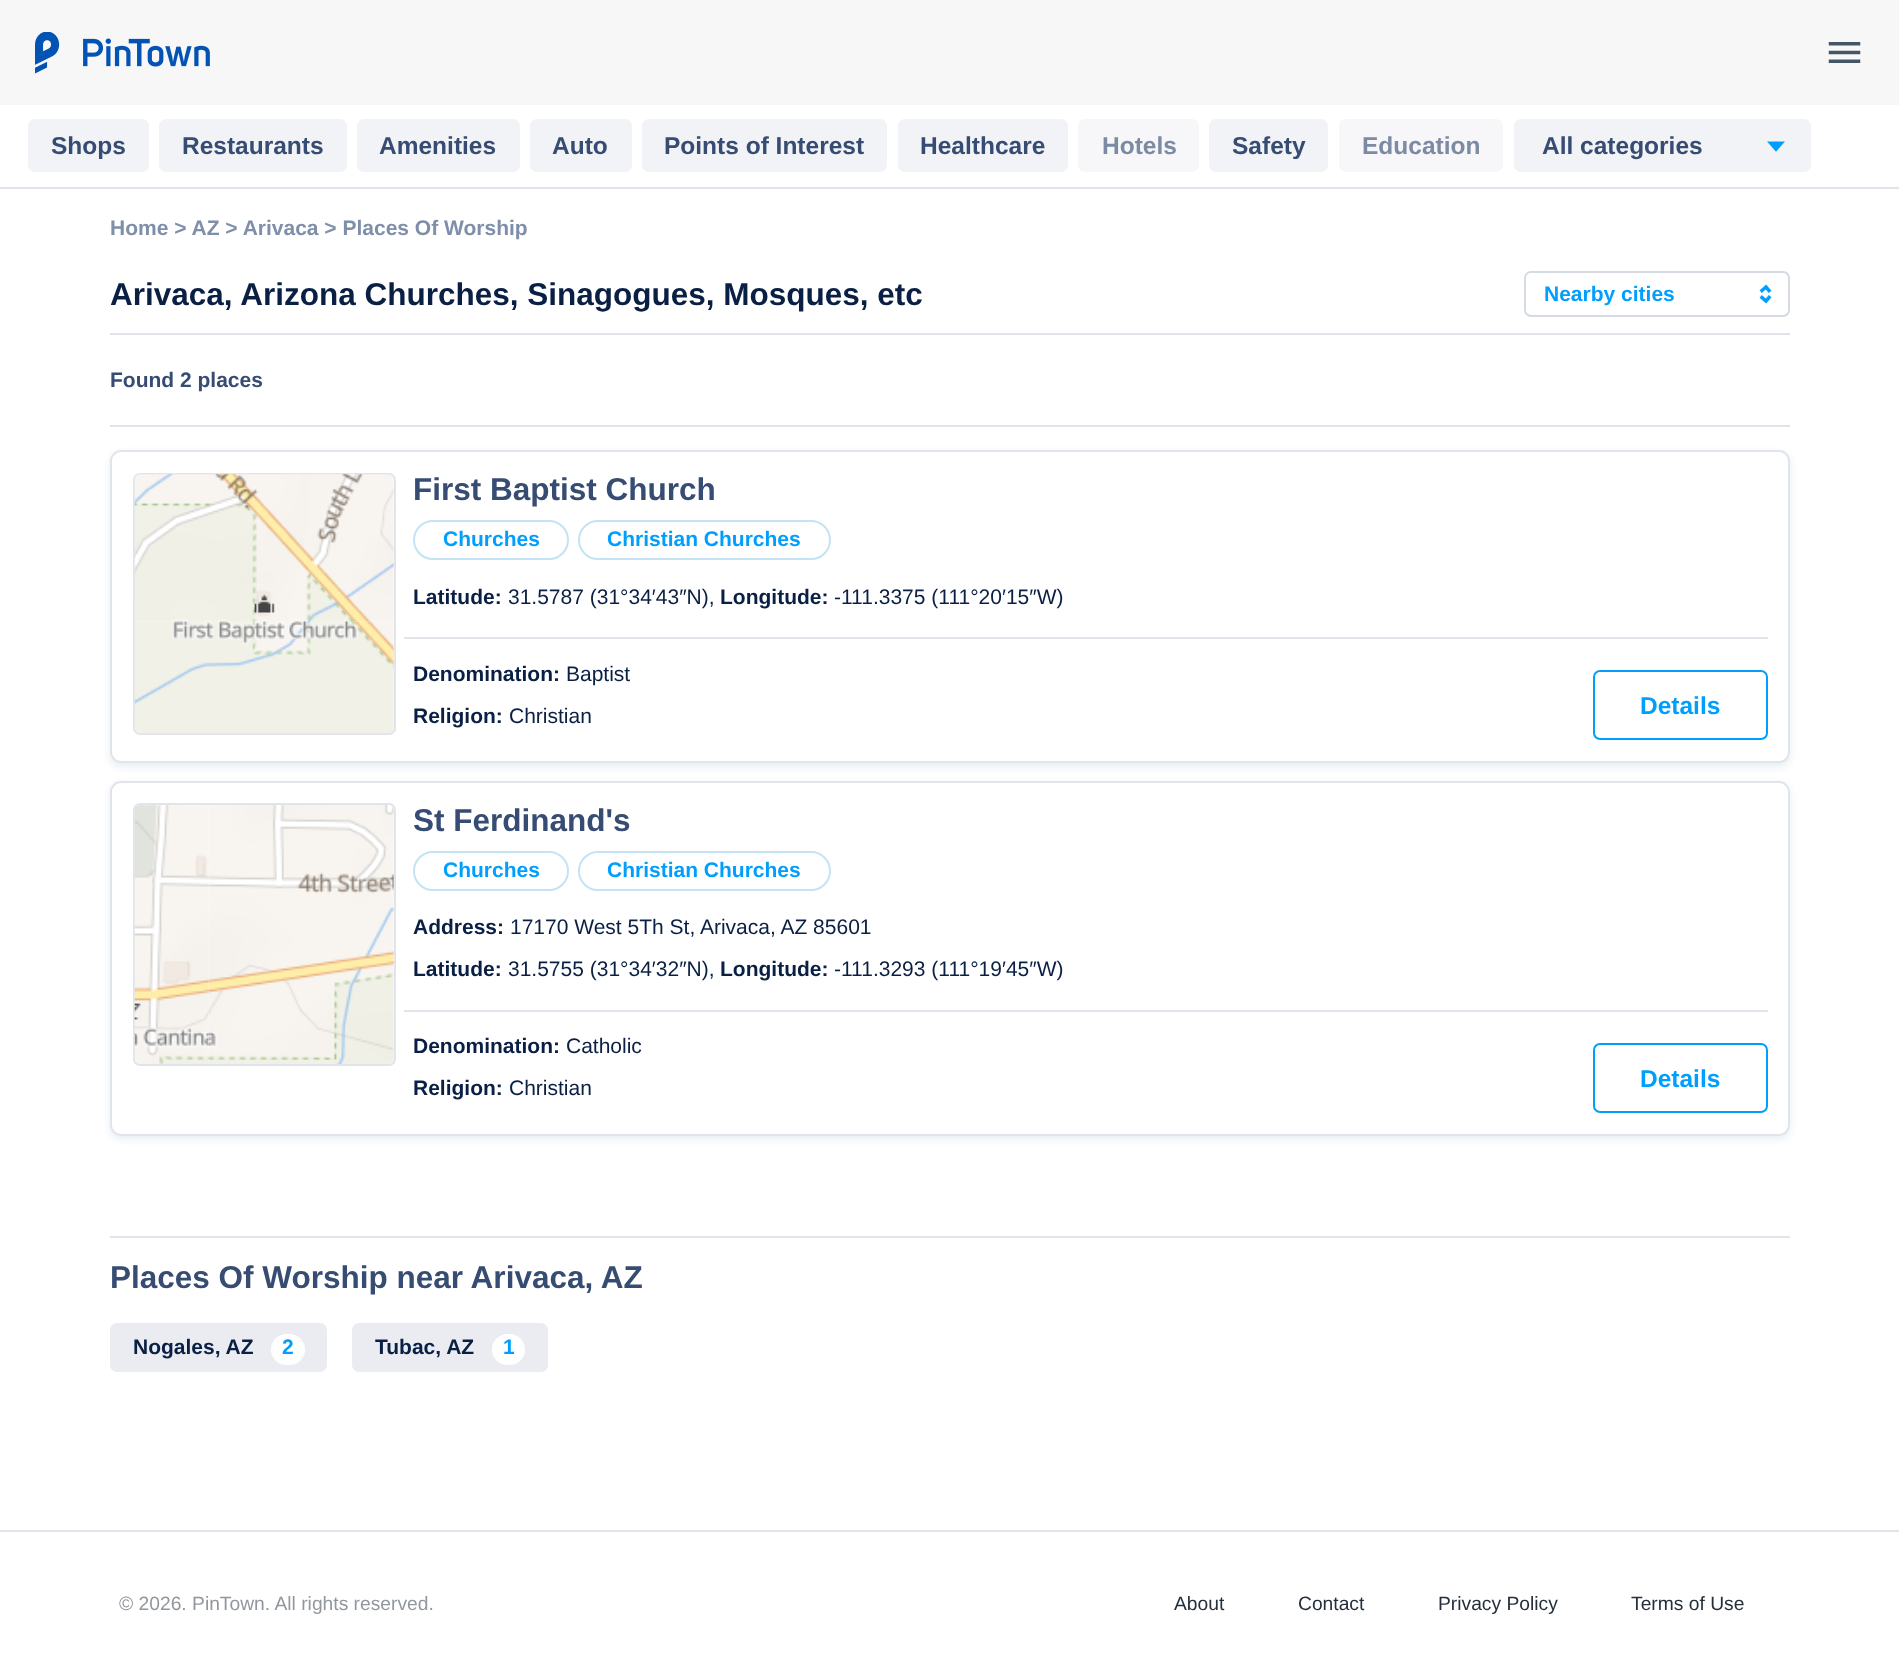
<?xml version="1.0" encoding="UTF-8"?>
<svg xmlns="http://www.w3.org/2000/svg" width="1899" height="1673">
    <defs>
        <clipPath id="clip1"><path d="M 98 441 H 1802 V 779 H 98 Z M 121 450 H 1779 C 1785 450 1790 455 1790 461 V 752 C 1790 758 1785 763 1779 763 H 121 C 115 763 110 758 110 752 V 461 C 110 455 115 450 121 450 Z" clip-rule="evenodd"/></clipPath>
        <filter id="blur1" x="-50%" y="-200%" width="200%" height="500%"><feGaussianBlur stdDeviation="3.5"/></filter>
        <clipPath id="clip2"><path d="M 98 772 H 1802 V 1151 H 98 Z M 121 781 H 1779 C 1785 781 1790 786 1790 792 V 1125 C 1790 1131 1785 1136 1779 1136 H 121 C 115 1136 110 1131 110 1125 V 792 C 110 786 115 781 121 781 Z" clip-rule="evenodd"/></clipPath>
    </defs>
    <rect width="100%" height="100%" fill="#FFFFFF"/>
    <rect x="0" y="0" width="1899" height="105" fill="#F7F7F7"/>
    <image x="35" y="32" width="175" height="42" href="img_01.png"/>
    <image x="1828" y="42" width="33" height="21" href="img_02.png"/>
    <rect x="0" y="187" width="1899" height="2" fill="#E1E5EB"/>
    <rect x="28" y="119" width="121" height="53" rx="7" fill="#F2F3F6"/>
    <text x="51" y="154" font-family="Liberation Sans" font-size="24.5" font-weight="700" fill="#364C72">Shops</text>
    <rect x="159" y="119" width="188" height="53" rx="7" fill="#F2F3F6"/>
    <text x="182" y="154" font-family="Liberation Sans" font-size="24.5" font-weight="700" fill="#364C72">Restaurants</text>
    <rect x="357" y="119" width="163" height="53" rx="7" fill="#F2F3F6"/>
    <text x="379" y="154" font-family="Liberation Sans" font-size="24.5" font-weight="700" fill="#364C72">Amenities</text>
    <rect x="530" y="119" width="102" height="53" rx="7" fill="#F2F3F6"/>
    <text x="552" y="154" font-family="Liberation Sans" font-size="24.5" font-weight="700" fill="#364C72">Auto</text>
    <rect x="642" y="119" width="245" height="53" rx="7" fill="#F2F3F6"/>
    <text x="664" y="154" font-family="Liberation Sans" font-size="24.5" font-weight="700" fill="#364C72">Points of Interest</text>
    <rect x="898" y="119" width="170" height="53" rx="7" fill="#F2F3F6"/>
    <text x="920" y="154" font-family="Liberation Sans" font-size="24.5" font-weight="700" fill="#364C72">Healthcare</text>
    <rect x="1078" y="119" width="121" height="53" rx="7" fill="#F7F7F9"/>
    <text x="1102" y="154" font-family="Liberation Sans" font-size="24.5" font-weight="700" fill="#7C8BA3">Hotels</text>
    <rect x="1209" y="119" width="119" height="53" rx="7" fill="#F2F3F6"/>
    <text x="1232" y="154" font-family="Liberation Sans" font-size="24.5" font-weight="700" fill="#364C72">Safety</text>
    <rect x="1339" y="119" width="164" height="53" rx="7" fill="#F7F7F9"/>
    <text x="1362" y="154" font-family="Liberation Sans" font-size="24.5" font-weight="700" fill="#7C8BA3">Education</text>
    <rect x="1514" y="119" width="297" height="53" rx="7" fill="#F2F3F6"/>
    <text x="1542" y="154" font-family="Liberation Sans" font-size="24.5" font-weight="700" fill="#364C72">All categories</text>
    <path d="M 1776 150.5 L 1783 142.5 H 1769 Z" fill="#009FFE" fill-rule="evenodd" stroke="#009FFE" stroke-width="1.8"/>
    <text x="110" y="235" font-family="Liberation Sans" font-size="21" font-weight="700" fill="#7F8EA9">Home &gt; AZ &gt; Arivaca &gt; Places Of Worship</text>
    <rect x="110" y="333" width="1680" height="2" fill="#E1E5EB"/>
    <text x="110" y="305" font-family="Liberation Sans" font-size="31.5" font-weight="700" fill="#0A1F44">Arivaca, Arizona Churches, Sinagogues, Mosques, etc</text>
    <rect x="1525" y="272" width="264" height="44" rx="6" fill="none" stroke="#D5DAE3" stroke-width="2"/>
    <text x="1544" y="301" font-family="Liberation Sans" font-size="21" font-weight="700" fill="#009FFE">Nearby cities</text>
    <path d="M 1769 290.5 L 1766 287 L 1762 290.5 M 1769 297.5 L 1766 301 L 1762 297.5" fill="none" stroke="#009FFE" stroke-width="3.5" stroke-linecap="square"/>
    <rect x="110" y="425" width="1680" height="2" fill="#E1E5EB"/>
    <text x="110" y="387" font-family="Liberation Sans" font-size="21" font-weight="700" fill="#364C72">Found 2 places</text>
    <g clip-path="url(#clip1)">
        <rect x="110" y="453" width="1680" height="314" rx="11" fill="#005689" fill-opacity="0.1" filter="url(#blur1)"/>
    </g>
    <rect x="111" y="451" width="1678" height="311" rx="10" fill="none" stroke="#E1E5EB" stroke-width="2"/>
    <rect x="134" y="474" width="261" height="260" rx="6" fill="none" stroke="#E1E5EB" stroke-width="2"/>
    <image x="134" y="474" width="260" height="260" href="img_03.png"/>
    <text x="413" y="500" font-family="Liberation Sans" font-size="31.5" font-weight="700" fill="#364C72">First Baptist Church</text>
    <rect x="414" y="521" width="154" height="38" rx="19" fill="none" stroke="#C4E3F4" stroke-width="2"/>
    <text x="443" y="546" font-family="Liberation Sans" font-size="21" font-weight="700" fill="#009FFE">Churches</text>
    <rect x="579" y="521" width="251" height="38" rx="19" fill="none" stroke="#C4E3F4" stroke-width="2"/>
    <text x="607" y="546" font-family="Liberation Sans" font-size="21" font-weight="700" fill="#009FFE">Christian Churches</text>
    <text x="413" y="604" font-family="Liberation Sans" font-size="21" font-weight="700" fill="#0A1F44">Latitude:</text>
    <text x="508" y="604" font-family="Liberation Sans" font-size="21" fill="#0A1F44">31.5787 (31°34′43″N),</text>
    <text x="720" y="604" font-family="Liberation Sans" font-size="21" font-weight="700" fill="#0A1F44">Longitude:</text>
    <text x="834" y="604" font-family="Liberation Sans" font-size="21" fill="#0A1F44">-111.3375 (111°20′15″W)</text>
    <rect x="404" y="637" width="1364" height="2" fill="#E1E5EB"/>
    <text x="413" y="681" font-family="Liberation Sans" font-size="21" font-weight="700" fill="#0A1F44">Denomination:</text>
    <text x="566" y="681" font-family="Liberation Sans" font-size="21" fill="#0A1F44">Baptist</text>
    <text x="413" y="723" font-family="Liberation Sans" font-size="21" font-weight="700" fill="#0A1F44">Religion:</text>
    <text x="509" y="723" font-family="Liberation Sans" font-size="21" fill="#0A1F44">Christian</text>
    <rect x="1594" y="671" width="173" height="68" rx="6" fill="none" stroke="#009FFE" stroke-width="2"/>
    <text x="1640" y="714" font-family="Liberation Sans" font-size="24.5" font-weight="700" fill="#009FFE">Details</text>
    <g clip-path="url(#clip2)">
        <rect x="110" y="784" width="1680" height="355" rx="11" fill="#005689" fill-opacity="0.1" filter="url(#blur1)"/>
    </g>
    <rect x="111" y="782" width="1678" height="353" rx="10" fill="none" stroke="#E1E5EB" stroke-width="2"/>
    <rect x="134" y="804" width="261" height="261" rx="6" fill="none" stroke="#E1E5EB" stroke-width="2"/>
    <image x="134" y="805" width="260" height="259" href="img_04.png"/>
    <text x="413" y="831" font-family="Liberation Sans" font-size="31.5" font-weight="700" fill="#364C72">St Ferdinand's</text>
    <rect x="414" y="852" width="154" height="38" rx="19" fill="none" stroke="#C4E3F4" stroke-width="2"/>
    <text x="443" y="877" font-family="Liberation Sans" font-size="21" font-weight="700" fill="#009FFE">Churches</text>
    <rect x="579" y="852" width="251" height="38" rx="19" fill="none" stroke="#C4E3F4" stroke-width="2"/>
    <text x="607" y="877" font-family="Liberation Sans" font-size="21" font-weight="700" fill="#009FFE">Christian Churches</text>
    <text x="413" y="934" font-family="Liberation Sans" font-size="21" font-weight="700" fill="#0A1F44">Address:</text>
    <text x="510" y="934" font-family="Liberation Sans" font-size="21" fill="#0A1F44">17170 West 5Th St, Arivaca, AZ 85601</text>
    <text x="413" y="976" font-family="Liberation Sans" font-size="21" font-weight="700" fill="#0A1F44">Latitude:</text>
    <text x="508" y="976" font-family="Liberation Sans" font-size="21" fill="#0A1F44">31.5755 (31°34′32″N),</text>
    <text x="720" y="976" font-family="Liberation Sans" font-size="21" font-weight="700" fill="#0A1F44">Longitude:</text>
    <text x="834" y="976" font-family="Liberation Sans" font-size="21" fill="#0A1F44">-111.3293 (111°19′45″W)</text>
    <rect x="404" y="1010" width="1364" height="2" fill="#E1E5EB"/>
    <text x="413" y="1053" font-family="Liberation Sans" font-size="21" font-weight="700" fill="#0A1F44">Denomination:</text>
    <text x="566" y="1053" font-family="Liberation Sans" font-size="21" fill="#0A1F44">Catholic</text>
    <text x="413" y="1095" font-family="Liberation Sans" font-size="21" font-weight="700" fill="#0A1F44">Religion:</text>
    <text x="509" y="1095" font-family="Liberation Sans" font-size="21" fill="#0A1F44">Christian</text>
    <rect x="1594" y="1044" width="173" height="68" rx="6" fill="none" stroke="#009FFE" stroke-width="2"/>
    <text x="1640" y="1087" font-family="Liberation Sans" font-size="24.5" font-weight="700" fill="#009FFE">Details</text>
    <rect x="110" y="1236" width="1680" height="2" fill="#E1E5EB"/>
    <text x="110" y="1288" font-family="Liberation Sans" font-size="31.5" font-weight="700" fill="#364C72">Places Of Worship near Arivaca, AZ</text>
    <rect x="110" y="1323" width="217" height="49" rx="7" fill="#EAECF1"/>
    <text x="133" y="1354" font-family="Liberation Sans" font-size="21" font-weight="700" fill="#0A1F44">Nogales, AZ</text>
    <rect x="271" y="1334" width="34" height="31" rx="15.5" fill="#FFFFFF"/>
    <text x="282" y="1354" font-family="Liberation Sans" font-size="21" font-weight="700" fill="#009FFE">2</text>
    <rect x="352" y="1323" width="196" height="49" rx="7" fill="#EAECF1"/>
    <text x="375" y="1354" font-family="Liberation Sans" font-size="21" font-weight="700" fill="#0A1F44">Tubac, AZ</text>
    <rect x="492" y="1334" width="33" height="31" rx="15.5" fill="#FFFFFF"/>
    <text x="503" y="1354" font-family="Liberation Sans" font-size="21" font-weight="700" fill="#009FFE">1</text>
    <rect x="0" y="1530" width="1899" height="2" fill="#E1E5EB"/>
    <text x="119" y="1610" font-family="Liberation Sans" font-size="19.25" fill="#92979E">© 2026. PinTown. All rights reserved.</text>
    <text x="1174" y="1610" font-family="Liberation Sans" font-size="19.25" fill="#252F3C">About</text>
    <text x="1298" y="1610" font-family="Liberation Sans" font-size="19.25" fill="#252F3C">Contact</text>
    <text x="1438" y="1610" font-family="Liberation Sans" font-size="19.25" fill="#252F3C">Privacy Policy</text>
    <text x="1631" y="1610" font-family="Liberation Sans" font-size="19.25" fill="#252F3C">Terms of Use</text>
</svg>
